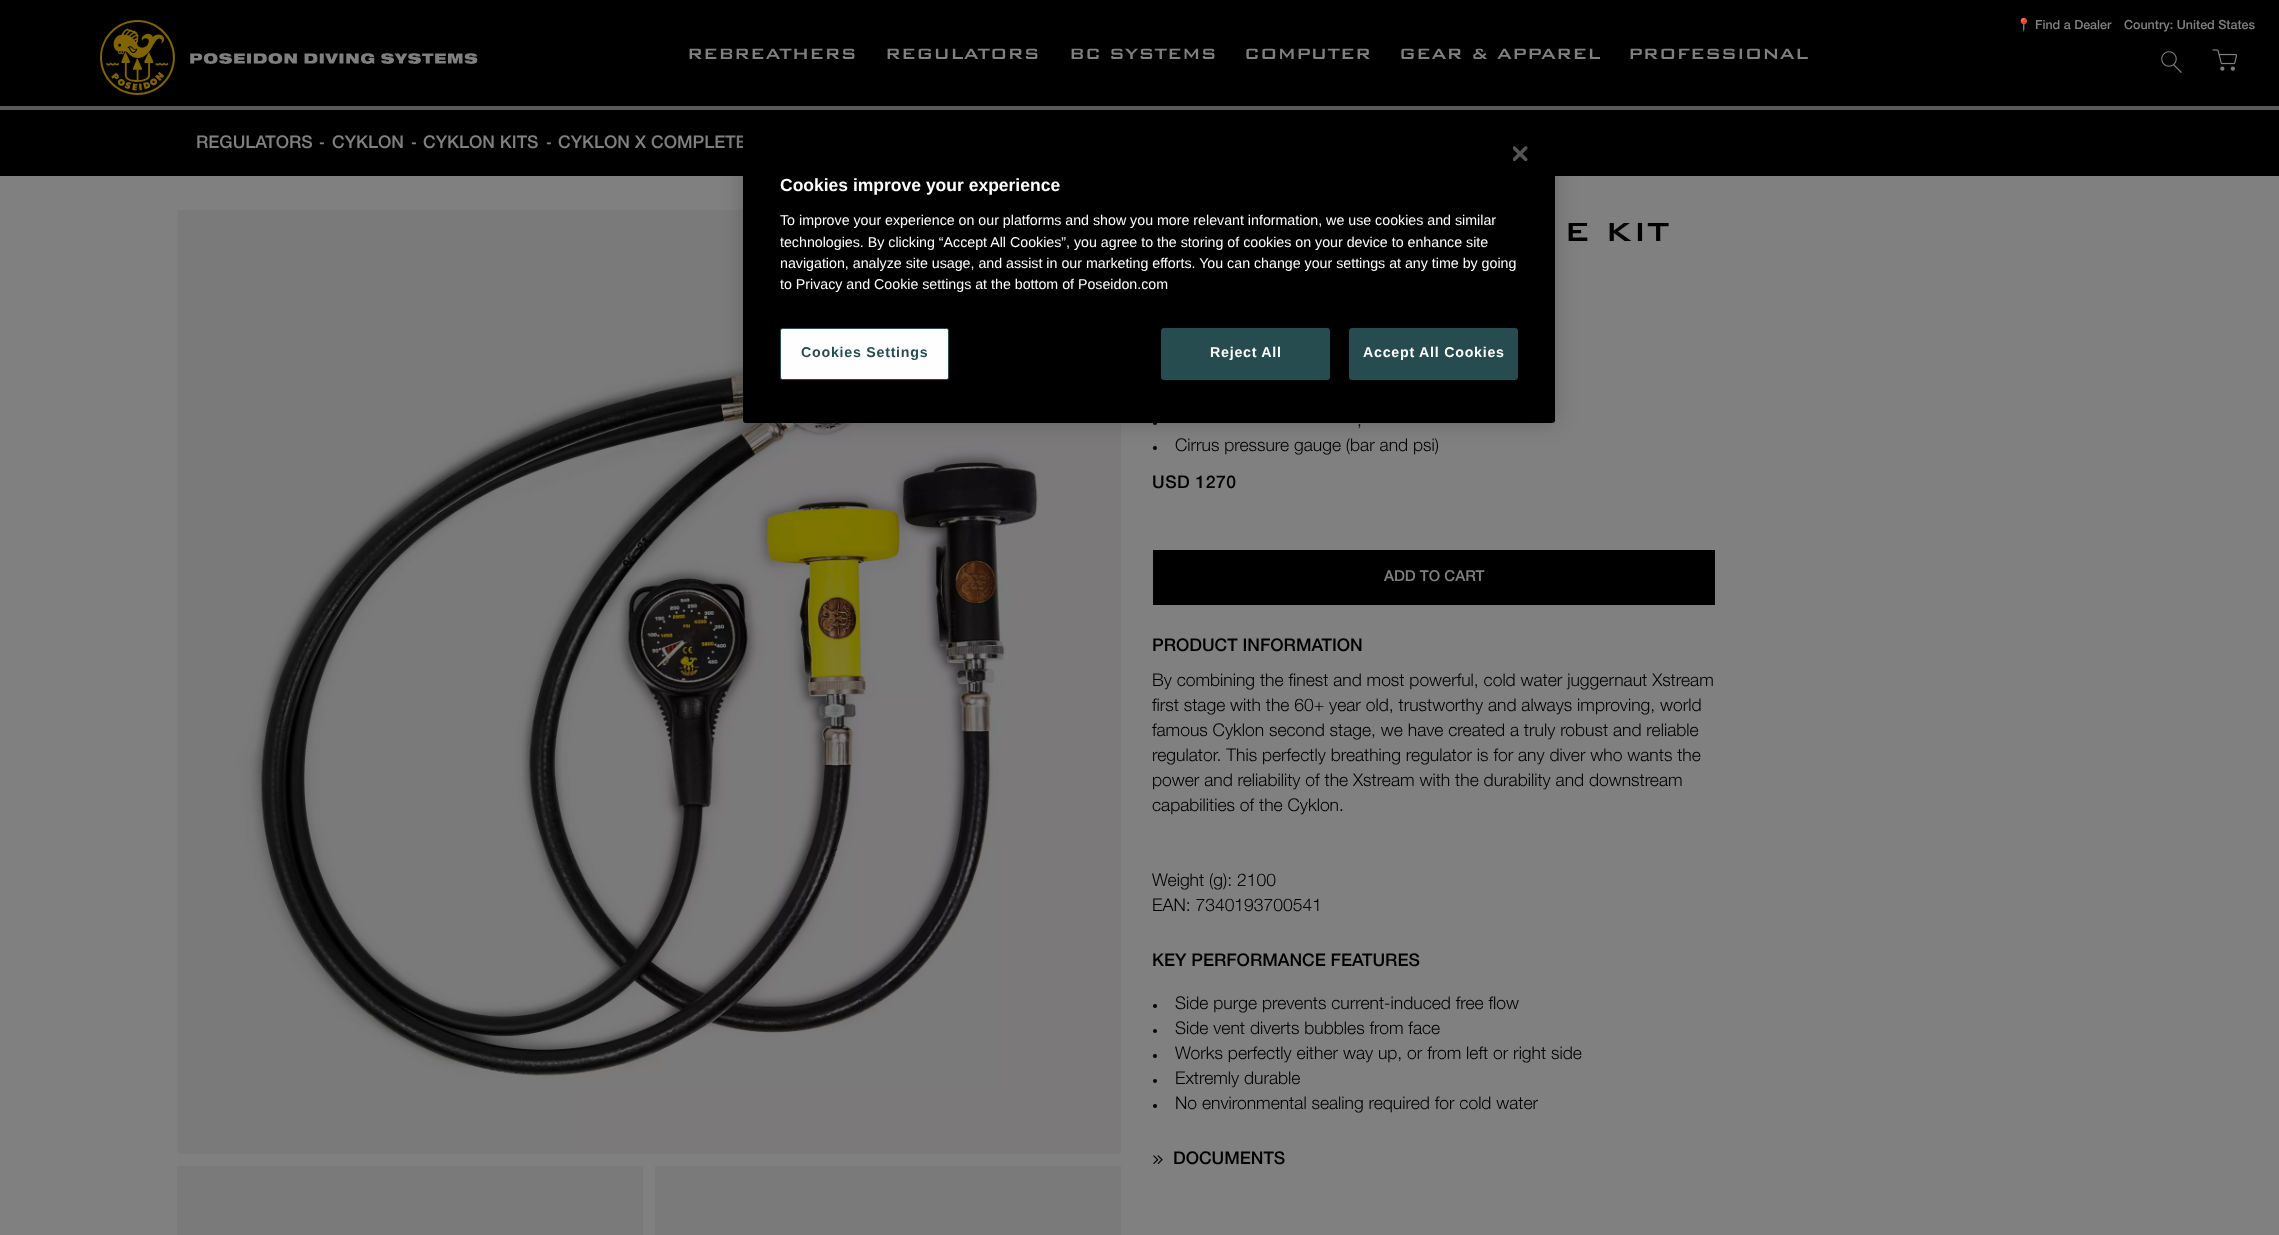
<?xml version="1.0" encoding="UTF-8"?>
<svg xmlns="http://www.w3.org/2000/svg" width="2279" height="1235">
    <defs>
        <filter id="blur1" x="-50%" y="-200%" width="200%" height="500%"><feGaussianBlur stdDeviation="11"/></filter>
    </defs>
    <rect width="100%" height="100%" fill="#808080"/>
    <rect x="0" y="0" width="2279" height="106" fill="#000000"/>
    <image x="100" y="20" width="378" height="75" href="img_01.png"/>
    <text x="687" y="59" font-family="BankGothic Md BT" font-size="20" font-weight="500" fill="#808080">REBREATHERS</text>
    <text x="885" y="59" font-family="BankGothic Md BT" font-size="20" font-weight="500" fill="#808080">REGULATORS</text>
    <text x="1069" y="59" font-family="BankGothic Md BT" font-size="20" font-weight="500" fill="#808080">BC SYSTEMS</text>
    <text x="1244" y="59" font-family="BankGothic Md BT" font-size="20" font-weight="500" fill="#808080">COMPUTER</text>
    <text x="1399" y="59" word-spacing="1" font-family="BankGothic Md BT" font-size="20" font-weight="500" fill="#808080">GEAR &amp; APPAREL</text>
    <text x="1628" y="59" font-family="BankGothic Md BT" font-size="20" font-weight="500" fill="#808080">PROFESSIONAL</text>
    <text x="2016" y="29" font-family="Noto Color Emoji" font-size="12.5" fill="#808080">📍</text>
    <text x="2035" y="29" font-family="Helvetica Neue" font-size="12.5" font-weight="500" fill="#808080">Find a Dealer</text>
    <text x="2124" y="29" font-family="Helvetica Neue" font-size="12.5" font-weight="500" fill="#808080">Country: United States</text>
    <image x="2161" y="51" width="21" height="22" href="img_02.png"/>
    <image x="2212" y="49" width="25" height="22" href="img_03.png"/>
    <rect x="0" y="106" width="2279" height="4" fill="#5A5A5A"/>
    <rect x="0" y="110" width="2279" height="66" fill="#000000"/>
    <text x="196" y="148" font-family="Helvetica Neue" font-size="17.5" font-weight="500" fill="#808080">REGULATORS</text>
    <text x="319" y="148" font-family="BankGothic Md BT" font-size="17.5" font-weight="500" fill="#808080">-</text>
    <text x="332" y="148" font-family="Helvetica Neue" font-size="17.5" font-weight="500" fill="#808080">CYKLON</text>
    <text x="411" y="148" font-family="BankGothic Md BT" font-size="17.5" font-weight="500" fill="#808080">-</text>
    <text x="423" y="148" font-family="Helvetica Neue" font-size="17.5" font-weight="500" fill="#808080">CYKLON KITS</text>
    <text x="546" y="148" font-family="BankGothic Md BT" font-size="17.5" font-weight="500" fill="#808080">-</text>
    <text x="558" y="148" font-family="Helvetica Neue" font-size="17.5" font-weight="500" fill="#808080">CYKLON X COMPLETE</text>
    <image x="177" y="210" width="944" height="944" href="img_04.png"/>
    <rect x="177" y="1166" width="466" height="69" fill="#7A7A7A"/>
    <rect x="655" y="1166" width="466" height="69" fill="#7A7A7A"/>
    <text x="1564" y="241" font-family="BankGothic Md BT" font-size="35" font-weight="500" letter-spacing="0.5" fill="#000000">E KIT</text>
    <circle cx="1155" cy="423" r="2" fill="#000000"/>
    <text x="1357" y="426" font-family="Helvetica Neue" font-size="17.5" font-weight="300" fill="#000000">,</text>
    <circle cx="1155" cy="448" r="2" fill="#000000"/>
    <text x="1175" y="451" font-family="Helvetica Neue" font-size="17.5" font-weight="300" fill="#000000">Cirrus pressure gauge (bar and psi)</text>
    <text x="1152" y="488" font-family="Helvetica Neue" font-size="17.5" font-weight="500" letter-spacing="0.5" fill="#000000">USD 1270</text>
    <rect x="1153" y="550" width="562" height="55" fill="#000000"/>
    <text x="1384" y="581" font-family="Helvetica Neue" font-size="15" font-weight="500" fill="#808080">ADD TO CART</text>
    <text x="1152" y="651" font-family="Helvetica Neue" font-size="17.5" font-weight="500" fill="#000000">PRODUCT INFORMATION</text>
    <text font-family="Helvetica Neue" font-size="17.5" font-weight="300" fill="#000000">
        <tspan x="1152" y="686">By combining the finest and most powerful, cold water juggernaut Xstream</tspan>
        <tspan x="1152" y="711">first stage with the 60+ year old, trustworthy and always improving, world</tspan>
        <tspan x="1152" y="736">famous Cyklon second stage, we have created a truly robust and reliable</tspan>
        <tspan x="1152" y="761">regulator. This perfectly breathing regulator is for any diver who wants the</tspan>
        <tspan x="1152" y="786">power and reliability of the Xstream with the durability and downstream</tspan>
        <tspan x="1152" y="811">capabilities of the Cyklon.</tspan>
    </text>
    <text font-family="Helvetica Neue" font-size="17.5" font-weight="300" fill="#000000">
        <tspan x="1152" y="886">Weight (g): 2100</tspan>
        <tspan x="1152" y="911">EAN: 7340193700541</tspan>
    </text>
    <text x="1152" y="966" font-family="Helvetica Neue" font-size="17.5" font-weight="500" fill="#000000">KEY PERFORMANCE FEATURES</text>
    <circle cx="1155" cy="1006" r="2" fill="#000000"/>
    <text x="1175" y="1009" font-family="Helvetica Neue" font-size="17.5" font-weight="300" fill="#000000">Side purge prevents current-induced free flow</text>
    <circle cx="1155" cy="1031" r="2" fill="#000000"/>
    <text x="1175" y="1034" font-family="Helvetica Neue" font-size="17.5" font-weight="300" fill="#000000">Side vent diverts bubbles from face</text>
    <circle cx="1155" cy="1056" r="2" fill="#000000"/>
    <text x="1175" y="1059" font-family="Helvetica Neue" font-size="17.5" font-weight="300" fill="#000000">Works perfectly either way up, or from left or right side</text>
    <circle cx="1155" cy="1081" r="2" fill="#000000"/>
    <text x="1175" y="1084" font-family="Helvetica Neue" font-size="17.5" font-weight="300" fill="#000000">Extremly durable</text>
    <circle cx="1155" cy="1106" r="2" fill="#000000"/>
    <text x="1175" y="1109" font-family="Helvetica Neue" font-size="17.5" font-weight="300" fill="#000000">No environmental sealing required for cold water</text>
    <image x="1153" y="1155" width="10" height="9" href="img_05.png"/>
    <text x="1173" y="1164" font-family="Helvetica Neue" font-size="17.5" font-weight="500" fill="#000000">DOCUMENTS</text>
    <rect x="743" y="124" width="812" height="299" rx="3" fill="#000000" fill-opacity="0.2" filter="url(#blur1)"/>
    <rect x="743" y="124" width="812" height="299" rx="3" fill="#000000"/>
    <image x="1513" y="146" width="15" height="15" href="img_06.png"/>
    <text x="780" y="191" font-family="Liberation Sans" font-size="17.5" font-weight="700" fill="#FFFEFE">Cookies improve your experience</text>
    <text font-family="Liberation Sans" font-size="14.23" fill="#FFFEFE">
        <tspan x="780" y="225">To improve your experience on our platforms and show you more relevant information, we use cookies and similar</tspan>
        <tspan x="780" y="247">technologies. By clicking “Accept All Cookies”, you agree to the storing of cookies on your device to enhance site</tspan>
        <tspan x="780" y="268">navigation, analyze site usage, and assist in our marketing efforts. You can change your settings at any time by going</tspan>
        <tspan x="780" y="289">to Privacy and Cookie settings at the bottom of Poseidon.com</tspan>
    </text>
    <rect x="780.5" y="328.5" width="168" height="51" rx="2" fill="#FFFEFE" stroke="#274C4F"/>
    <text x="801" y="357" font-family="Liberation Sans" font-size="14.23" font-weight="700" letter-spacing="0.75" fill="#274C4F">Cookies Settings</text>
    <rect x="1161.5" y="328.5" width="168" height="51" rx="2" fill="#274C4F" stroke="#274C4F"/>
    <text x="1210" y="357" font-family="Liberation Sans" font-size="14.23" font-weight="700" letter-spacing="0.75" fill="#FFFEFE">Reject All</text>
    <rect x="1349.5" y="328.5" width="168" height="51" rx="2" fill="#274C4F" stroke="#274C4F"/>
    <text x="1363" y="357" font-family="Liberation Sans" font-size="14.23" font-weight="700" letter-spacing="0.75" fill="#FFFEFE">Accept All Cookies</text>
</svg>
